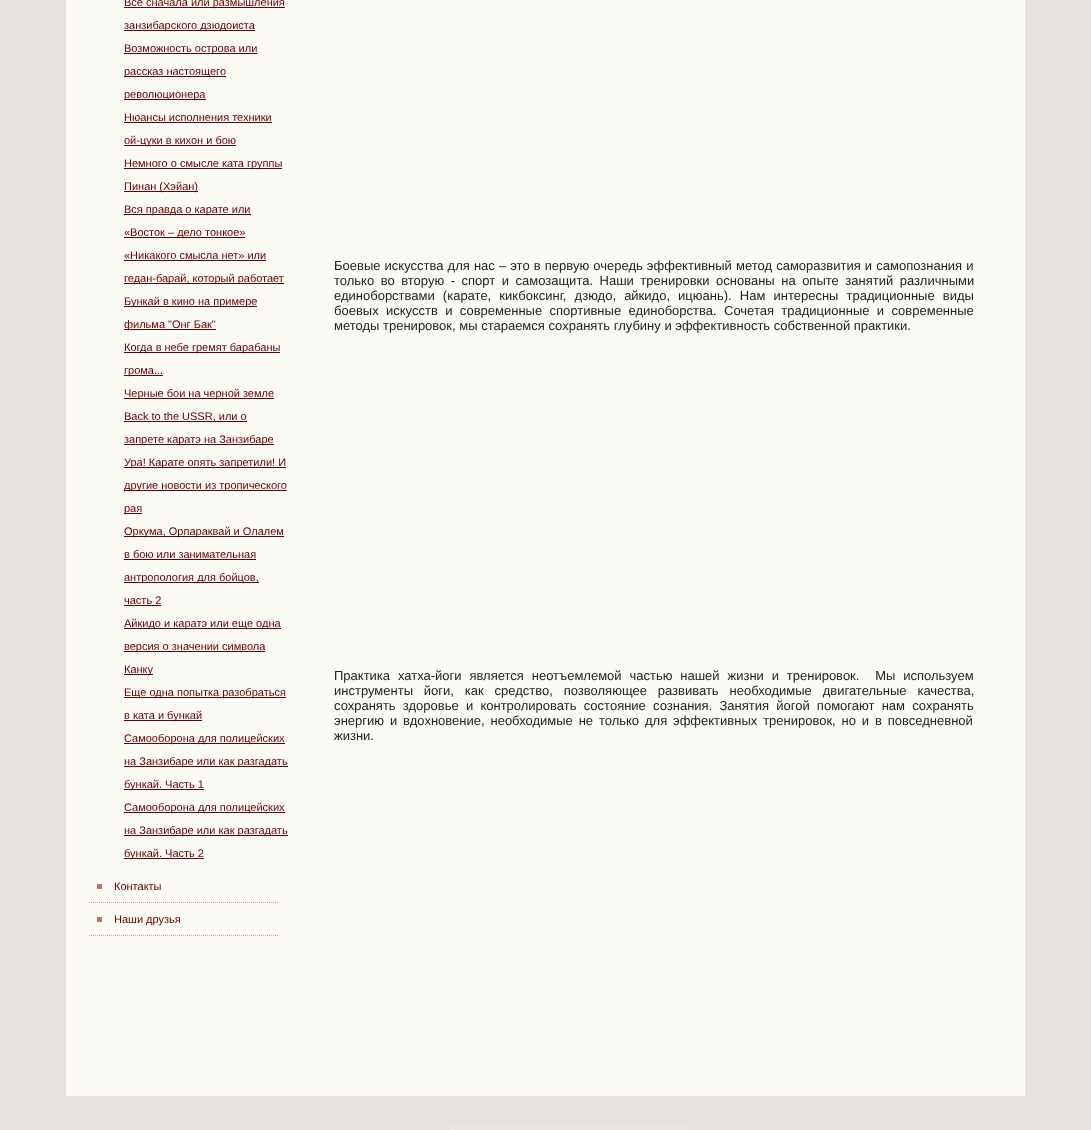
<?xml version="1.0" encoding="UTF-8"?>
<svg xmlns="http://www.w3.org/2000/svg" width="1091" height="1130">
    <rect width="100%" height="100%" fill="#E5E2DF"/>
    <rect x="450" y="1126" width="239" height="4" fill="#EAE6E3"/>
    <rect x="66" y="0" width="959" height="1096" fill="#FBFAF4"/>
    <rect x="124" y="7" width="161" height="1" fill="#610302"/>
    <text x="124" y="6" font-family="Liberation Sans" font-size="11" fill="#610302">Все сначала или размышления</text>
    <rect x="124" y="30" width="131" height="1" fill="#610302"/>
    <text x="124" y="29" font-family="Liberation Sans" font-size="11" fill="#610302">занзибарского дзюдоиста</text>
    <rect x="124" y="53" width="133" height="1" fill="#610302"/>
    <text x="124" y="52" font-family="Liberation Sans" font-size="11" fill="#610302">Возможность острова или</text>
    <rect x="124" y="76" width="102" height="1" fill="#610302"/>
    <text x="124" y="75" font-family="Liberation Sans" font-size="11" fill="#610302">рассказ настоящего</text>
    <rect x="124" y="99" width="82" height="1" fill="#610302"/>
    <text x="124" y="98" font-family="Liberation Sans" font-size="11" fill="#610302">революционера</text>
    <text x="124" y="121" font-family="Liberation Sans" font-size="11" fill="#610302">Нюансы исполнения техники</text>
    <rect x="124" y="122" width="148" height="1" fill="#610302"/>
    <rect x="124" y="145" width="112" height="1" fill="#610302"/>
    <text x="124" y="144" font-family="Liberation Sans" font-size="11" fill="#610302">ой-цуки в кихон и бою</text>
    <rect x="124" y="168" width="158" height="1" fill="#610302"/>
    <text x="124" y="167" font-family="Liberation Sans" font-size="11" fill="#610302">Немного о смысле ката группы</text>
    <rect x="124" y="191" width="74" height="1" fill="#610302"/>
    <text x="124" y="190" font-family="Liberation Sans" font-size="11" fill="#610302">Пинан (Хэйан)</text>
    <rect x="124" y="214" width="127" height="1" fill="#610302"/>
    <text x="124" y="213" font-family="Liberation Sans" font-size="11" fill="#610302">Вся правда о карате или</text>
    <rect x="124" y="237" width="121" height="1" fill="#610302"/>
    <text x="124" y="236" font-family="Liberation Sans" font-size="11" fill="#610302">«Восток – дело тонкое»</text>
    <text x="124" y="259" font-family="Liberation Sans" font-size="11" fill="#610302">«Никакого смысла нет» или</text>
    <rect x="124" y="260" width="142" height="1" fill="#610302"/>
    <rect x="124" y="283" width="160" height="1" fill="#610302"/>
    <text x="124" y="282" font-family="Liberation Sans" font-size="11" fill="#610302">гедан-барай, который работает</text>
    <rect x="124" y="306" width="133" height="1" fill="#610302"/>
    <text x="124" y="305" font-family="Liberation Sans" font-size="11" fill="#610302">Бункай в кино на примере</text>
    <rect x="124" y="329" width="92" height="1" fill="#610302"/>
    <text x="124" y="328" font-family="Liberation Sans" font-size="11" fill="#610302">фильма "Онг Бак"</text>
    <rect x="124" y="352" width="156" height="1" fill="#610302"/>
    <text x="124" y="351" font-family="Liberation Sans" font-size="11" fill="#610302">Когда в небе гремят барабаны</text>
    <rect x="124" y="375" width="39" height="1" fill="#610302"/>
    <text x="124" y="374" font-family="Liberation Sans" font-size="11" fill="#610302">грома...</text>
    <rect x="124" y="398" width="150" height="1" fill="#610302"/>
    <text x="124" y="397" font-family="Liberation Sans" font-size="11" fill="#610302">Черные бои на черной земле</text>
    <rect x="124" y="421" width="123" height="1" fill="#610302"/>
    <text x="124" y="420" font-family="Liberation Sans" font-size="11" fill="#610302">Back to the USSR, или о</text>
    <rect x="124" y="444" width="150" height="1" fill="#610302"/>
    <text x="124" y="443" font-family="Liberation Sans" font-size="11" fill="#610302">запрете каратэ на Занзибаре</text>
    <rect x="124" y="467" width="162" height="1" fill="#610302"/>
    <text x="124" y="466" font-family="Liberation Sans" font-size="11" fill="#610302">Ура! Карате опять запретили! И</text>
    <rect x="124" y="490" width="163" height="1" fill="#610302"/>
    <text x="124" y="489" font-family="Liberation Sans" font-size="11" fill="#610302">другие новости из тропического</text>
    <rect x="124" y="513" width="18" height="1" fill="#610302"/>
    <text x="124" y="512" font-family="Liberation Sans" font-size="11" fill="#610302">рая</text>
    <rect x="124" y="536" width="160" height="1" fill="#610302"/>
    <text x="124" y="535" font-family="Liberation Sans" font-size="11" fill="#610302">Оркума, Орпараквай и Олалем</text>
    <text x="124" y="558" font-family="Liberation Sans" font-size="11" fill="#610302">в бою или занимательная</text>
    <rect x="124" y="559" width="132" height="1" fill="#610302"/>
    <rect x="124" y="582" width="135" height="1" fill="#610302"/>
    <text x="124" y="581" font-family="Liberation Sans" font-size="11" fill="#610302">антропология для бойцов,</text>
    <text x="124" y="604" font-family="Liberation Sans" font-size="11" fill="#610302">часть 2</text>
    <rect x="124" y="605" width="37" height="1" fill="#610302"/>
    <rect x="124" y="628" width="157" height="1" fill="#610302"/>
    <text x="124" y="627" font-family="Liberation Sans" font-size="11" fill="#610302">Айкидо и каратэ или еще одна</text>
    <rect x="124" y="651" width="141" height="1" fill="#610302"/>
    <text x="124" y="650" font-family="Liberation Sans" font-size="11" fill="#610302">версия о значении символа</text>
    <rect x="124" y="674" width="29" height="1" fill="#610302"/>
    <text x="124" y="673" font-family="Liberation Sans" font-size="11" fill="#610302">Канку</text>
    <rect x="124" y="697" width="162" height="1" fill="#610302"/>
    <text x="124" y="696" font-family="Liberation Sans" font-size="11" fill="#610302">Еще одна попытка разобраться</text>
    <rect x="124" y="720" width="78" height="1" fill="#610302"/>
    <text x="124" y="719" font-family="Liberation Sans" font-size="11" fill="#610302">в ката и бункай</text>
    <rect x="124" y="743" width="161" height="1" fill="#610302"/>
    <text x="124" y="742" font-family="Liberation Sans" font-size="11" fill="#610302">Самооборона для полицейских</text>
    <rect x="124" y="766" width="164" height="1" fill="#610302"/>
    <text x="124" y="765" font-family="Liberation Sans" font-size="11" fill="#610302">на Занзибаре или как разгадать</text>
    <rect x="124" y="789" width="80" height="1" fill="#610302"/>
    <text x="124" y="788" font-family="Liberation Sans" font-size="11" fill="#610302">бункай. Часть 1</text>
    <rect x="124" y="812" width="161" height="1" fill="#610302"/>
    <text x="124" y="811" font-family="Liberation Sans" font-size="11" fill="#610302">Самооборона для полицейских</text>
    <rect x="124" y="835" width="164" height="1" fill="#610302"/>
    <text x="124" y="834" font-family="Liberation Sans" font-size="11" fill="#610302">на Занзибаре или как разгадать</text>
    <rect x="124" y="858" width="80" height="1" fill="#610302"/>
    <text x="124" y="857" font-family="Liberation Sans" font-size="11" fill="#610302">бункай. Часть 2</text>
    <rect x="97" y="884" width="5" height="5" fill="#BD7570"/>
    <path d="M 89 902.5 H 279" fill="none" stroke="#CF9D97" stroke-dasharray="1 1"/>
    <text x="114" y="890" font-family="Liberation Sans" font-size="11" fill="#610302">Контакты</text>
    <rect x="97" y="917" width="5" height="5" fill="#BD7570"/>
    <path d="M 89 935.5 H 279" fill="none" stroke="#CF9D97" stroke-dasharray="1 1"/>
    <text x="114" y="923" font-family="Liberation Sans" font-size="11" fill="#610302">Наши друзья</text>
    <text font-family="Liberation Sans" font-size="13" fill="#222222">
        <tspan x="334" y="270" word-spacing="0.5">Боевые искусства для нас – это в первую очередь эффективный метод саморазвития и самопознания и</tspan>
        <tspan x="334" y="285" word-spacing="2.9">только во вторую - спорт и самозащита. Наши тренировки основаны на опыте занятий различными</tspan>
        <tspan x="334" y="300" word-spacing="4.5">единоборствами (карате, кикбоксинг, дзюдо, айкидо, ицюань). Нам интересны традиционные виды</tspan>
        <tspan x="334" y="315" word-spacing="3.75">боевых искусств и современные спортивные единоборства. Сочетая традиционные и современные</tspan>
        <tspan x="334" y="330">методы тренировок, мы стараемся сохранять глубину и эффективность собственной практики.</tspan>
    </text>
    <text font-family="Liberation Sans" font-size="13" fill="#222222" xml:space="preserve"><tspan x="334" y="680" word-spacing="4.25">Практика хатха-йоги является неотъемлемой частью нашей жизни и тренировок.  Мы используем</tspan><tspan x="334" y="695" word-spacing="7.25">инструменты йоги, как средство, позволяющее развивать необходимые двигательные качества,</tspan><tspan x="334" y="710" word-spacing="3.6">сохранять здоровье и контролировать состояние сознания. Занятия йогой помогают нам сохранять</tspan><tspan x="334" y="725" word-spacing="2.25">энергию и вдохновение, необходимые не только для эффективных тренировок, но и в повседневной</tspan><tspan x="334" y="740">жизни.</tspan></text>
</svg>
